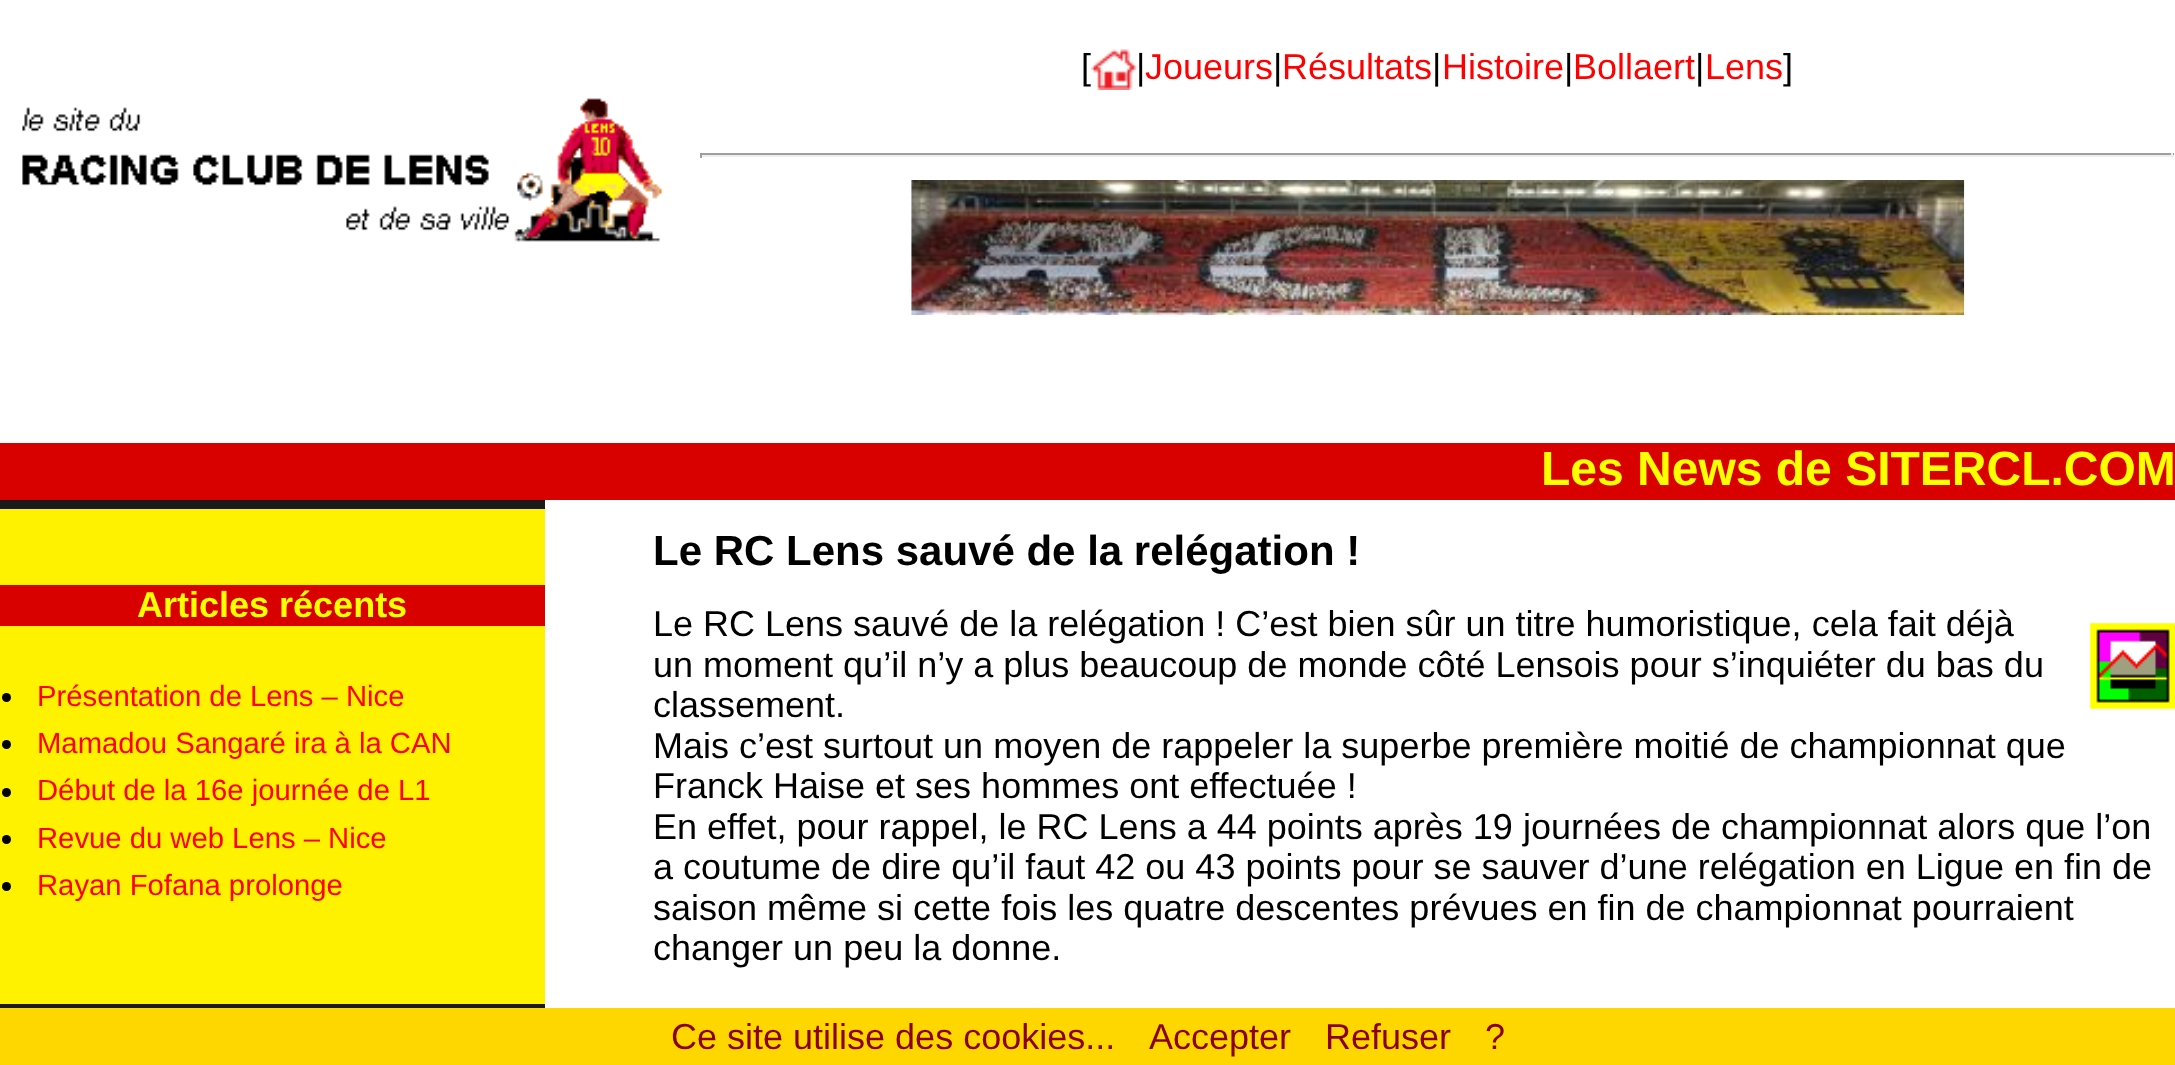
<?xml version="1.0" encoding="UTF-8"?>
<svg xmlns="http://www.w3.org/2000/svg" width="2175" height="1065">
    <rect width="100%" height="100%" fill="#FFFFFF"/>
    <text x="1081" y="79" font-family="Liberation Sans" font-size="36" fill="#000000">[</text>
    <image x="1091" y="49" width="46" height="41" href="img_01.png"/>
    <text x="1136" y="79" font-family="Liberation Sans" font-size="36" fill="#000000">|</text>
    <text x="1145" y="79" font-family="Liberation Sans" font-size="36" fill="#FF0000">Joueurs</text>
    <text x="1273" y="79" font-family="Liberation Sans" font-size="36" fill="#000000">|</text>
    <text x="1282" y="79" font-family="Liberation Sans" font-size="36" fill="#FF0000">Résultats</text>
    <text x="1432" y="79" font-family="Liberation Sans" font-size="36" fill="#000000">|</text>
    <text x="1442" y="79" font-family="Liberation Sans" font-size="36" fill="#FF0000">Histoire</text>
    <text x="1564" y="79" font-family="Liberation Sans" font-size="36" fill="#000000">|</text>
    <text x="1573" y="79" font-family="Liberation Sans" font-size="36" fill="#FF0000">Bollaert</text>
    <text x="1695" y="79" font-family="Liberation Sans" font-size="36" fill="#000000">|</text>
    <text x="1705" y="79" font-family="Liberation Sans" font-size="36" fill="#FF0000">Lens</text>
    <text x="1783" y="79" font-family="Liberation Sans" font-size="36" fill="#000000">]</text>
    <rect x="700" y="153" width="1474" height="2" fill="#9F9F9F"/>
    <rect x="2171" y="153" width="2" height="5" fill="#EEEEEE"/>
    <rect x="700" y="155" width="1474" height="2" fill="#EEEEEE"/>
    <rect x="700" y="153" width="2" height="5" fill="#9F9F9F"/>
    <image x="911" y="180" width="1054" height="135" href="img_02.png"/>
    <image x="22" y="98" width="641" height="144" href="img_03.png"/>
    <rect x="0" y="443" width="2175" height="57" fill="#D90000"/>
    <text x="1541" y="485" font-family="Liberation Sans" font-size="48" font-weight="700" fill="#FFFF00">Les News de SITERCL.COM</text>
    <rect x="0" y="509" width="545" height="495" fill="#FFF200"/>
    <rect x="0" y="500" width="545" height="9" fill="#1A1A1A"/>
    <rect x="0" y="585" width="545" height="41" fill="#D90000"/>
    <text x="137" y="617" font-family="Liberation Sans" font-size="36" font-weight="700" fill="#FFFF00">Articles récents</text>
    <circle cx="6.5" cy="697.5" r="4.5" fill="#000000"/>
    <text x="37" y="706" font-family="Liberation Sans" font-size="29.25" fill="#FF0000">Présentation de Lens – Nice</text>
    <circle cx="6.5" cy="744.5" r="4.5" fill="#000000"/>
    <text x="37" y="753" font-family="Liberation Sans" font-size="29.25" fill="#FF0000">Mamadou Sangaré ira à la CAN</text>
    <circle cx="6.5" cy="792.5" r="4.5" fill="#000000"/>
    <text x="37" y="800" font-family="Liberation Sans" font-size="29.25" fill="#FF0000">Début de la 16e journée de L1</text>
    <circle cx="6.5" cy="839.5" r="4.5" fill="#000000"/>
    <text x="37" y="848" font-family="Liberation Sans" font-size="29.25" fill="#FF0000">Revue du web Lens – Nice</text>
    <circle cx="6.5" cy="886.5" r="4.5" fill="#000000"/>
    <text x="37" y="895" font-family="Liberation Sans" font-size="29.25" fill="#FF0000">Rayan Fofana prolonge</text>
    <rect x="0" y="1004" width="545" height="4" fill="#1A1A1A"/>
    <text x="653" y="565" font-family="Liberation Sans" font-size="42" font-weight="700" fill="#000000">Le RC Lens sauvé de la relégation !</text>
    <text font-family="Liberation Sans" font-size="36" fill="#000000">
        <tspan x="653" y="636">Le RC Lens sauvé de la relégation ! C’est bien sûr un titre humoristique, cela fait déjà</tspan>
        <tspan x="653" y="677">un moment qu’il n’y a plus beaucoup de monde côté Lensois pour s’inquiéter du bas du</tspan>
        <tspan x="653" y="717">classement.</tspan>
        <tspan x="653" y="758">Mais c’est surtout un moyen de rappeler la superbe première moitié de championnat que</tspan>
        <tspan x="653" y="798">Franck Haise et ses hommes ont effectuée !</tspan>
        <tspan x="653" y="839">En effet, pour rappel, le RC Lens a 44 points après 19 journées de championnat alors que l’on</tspan>
        <tspan x="653" y="879">a coutume de dire qu’il faut 42 ou 43 points pour se sauver d’une relégation en Ligue en fin de</tspan>
        <tspan x="653" y="920">saison même si cette fois les quatre descentes prévues en fin de championnat pourraient</tspan>
        <tspan x="653" y="960">changer un peu la donne.</tspan>
    </text>
    <image x="2090" y="623" width="85" height="86" href="img_04.png"/>
    <rect x="0" y="1008" width="2175" height="57" fill="#FFD700"/>
    <text x="671" y="1049" font-family="Liberation Sans" font-size="36" fill="#8B0000">Ce site utilise des cookies...</text>
    <text x="1149" y="1049" font-family="Liberation Sans" font-size="36" fill="#8B0000">Accepter</text>
    <text x="1325" y="1049" font-family="Liberation Sans" font-size="36" fill="#8B0000">Refuser</text>
    <text x="1485" y="1049" font-family="Liberation Sans" font-size="36" fill="#8B0000">?</text>
</svg>
